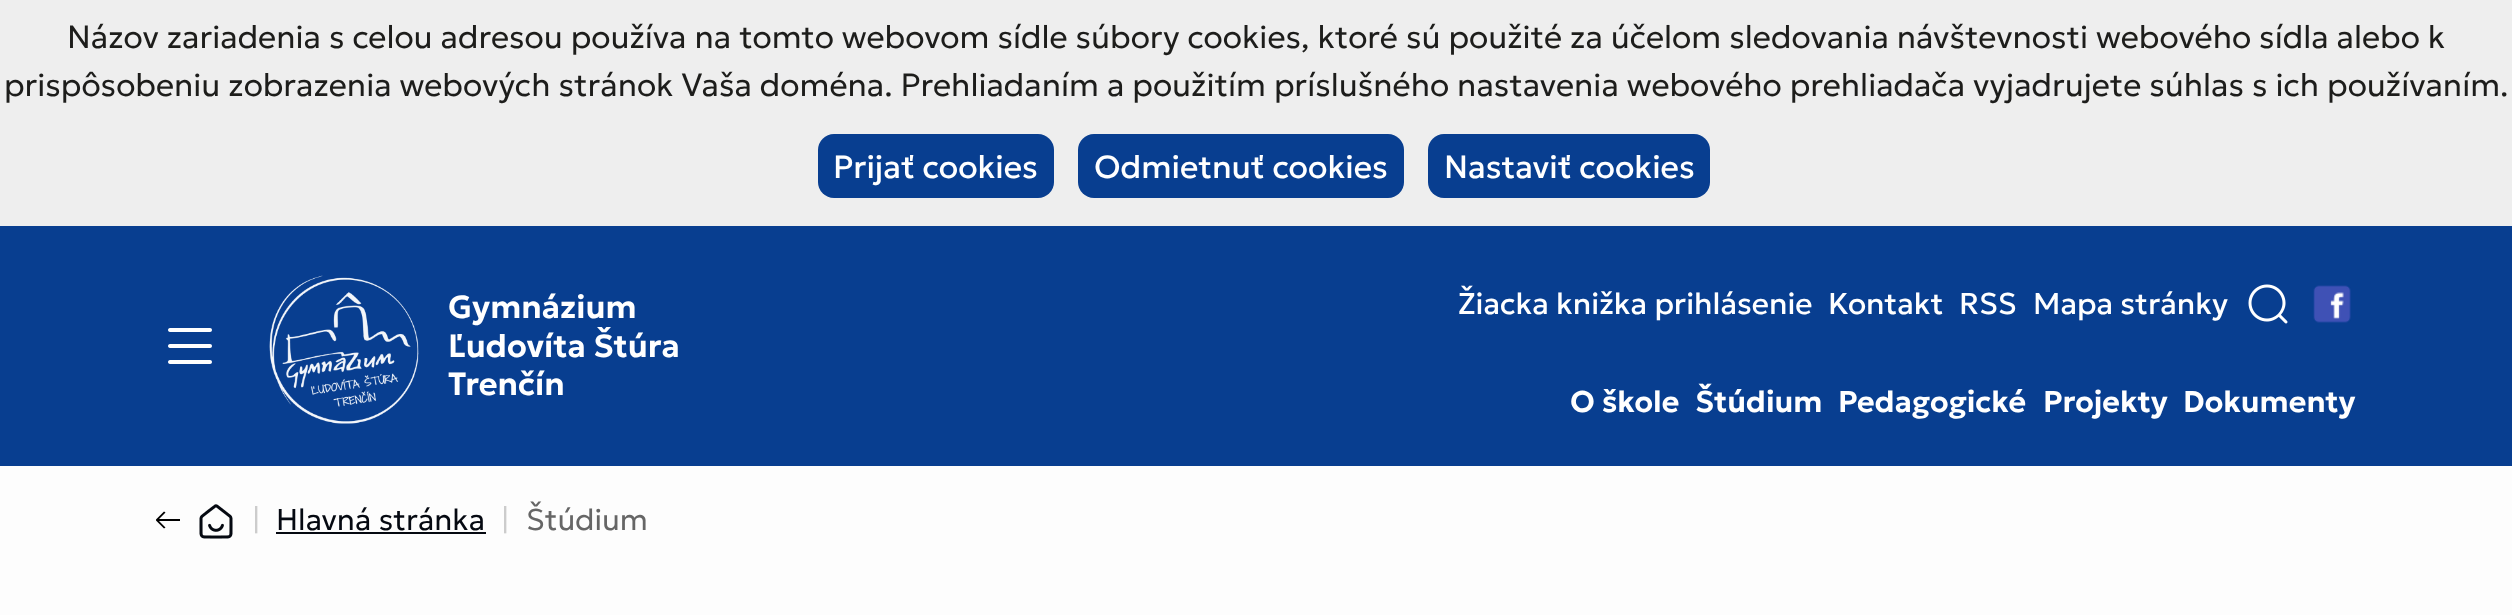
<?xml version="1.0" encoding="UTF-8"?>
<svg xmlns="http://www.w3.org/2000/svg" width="2512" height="615">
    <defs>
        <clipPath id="clip1"><rect x="156" y="508" width="24" height="24"/></clipPath>
    </defs>
    <rect width="100%" height="100%" fill="#FDFDFD"/>
    <rect x="0" y="0" width="2512" height="226" fill="#EEEEEE"/>
    <text x="67" y="48" font-family="Geologica" font-size="32" font-weight="300" fill="#1D1D1B">Názov zariadenia s celou adresou používa na tomto webovom sídle súbory cookies, ktoré sú použité za účelom sledovania návštevnosti webového sídla alebo k</text>
    <text x="4" y="96" font-family="Geologica" font-size="32" font-weight="300" fill="#1D1D1B">prispôsobeniu zobrazenia webových stránok Vaša doména. Prehliadaním a použitím príslušného nastavenia webového prehliadača vyjadrujete súhlas s ich používaním.</text>
    <rect x="818" y="134" width="236" height="64" rx="16" fill="#083E90"/>
    <text x="833" y="178" font-family="Geologica" font-size="32" fill="#FFFFFF">Prijať cookies</text>
    <rect x="1078" y="134" width="326" height="64" rx="16" fill="#083E90"/>
    <text x="1094" y="178" font-family="Geologica" font-size="32" fill="#FFFFFF">Odmietnuť cookies</text>
    <rect x="1428" y="134" width="282" height="64" rx="16" fill="#083E90"/>
    <text x="1444" y="178" font-family="Geologica" font-size="32" fill="#FFFFFF">Nastaviť cookies</text>
    <rect x="0" y="226" width="2512" height="240" fill="#083E90"/>
    <image x="168" y="328" width="44" height="36" href="img_01.png"/>
    <image x="269" y="275" width="150" height="149" href="img_02.png"/>
    <text font-family="Geologica" font-size="32" font-weight="600" fill="#FFFFFF">
        <tspan x="448" y="318">Gymnázium</tspan>
        <tspan x="448" y="357">Ľudovíta Štúra</tspan>
        <tspan x="448" y="395">Trenčín</tspan>
    </text>
    <text x="1458" y="314" font-family="Geologica" font-size="30" fill="#FFFFFF">Žiacka knižka prihlásenie</text>
    <text x="1828" y="314" font-family="Geologica" font-size="30" fill="#FFFFFF">Kontakt</text>
    <text x="1959" y="314" font-family="Geologica" font-size="30" fill="#FFFFFF">RSS</text>
    <text x="2033" y="314" font-family="Geologica" font-size="30" fill="#FFFFFF">Mapa stránky</text>
    <image x="2248" y="284" width="40" height="40" href="img_03.png"/>
    <image x="2313" y="285" width="38" height="38" href="img_04.png"/>
    <text x="1570" y="412" font-family="Geologica" font-size="30" font-weight="600" fill="#FFFFFF">O škole</text>
    <text x="1695" y="412" font-family="Geologica" font-size="30" font-weight="600" fill="#FFFFFF">Štúdium</text>
    <text x="1838" y="412" font-family="Geologica" font-size="30" font-weight="600" fill="#FFFFFF">Pedagogické</text>
    <text x="2043" y="412" font-family="Geologica" font-size="30" font-weight="600" fill="#FFFFFF">Projekty</text>
    <text x="2183" y="412" font-family="Geologica" font-size="30" font-weight="600" fill="#FFFFFF">Dokumenty</text>
    <g clip-path="url(#clip1)">
        <path d="M 164 511.5 L 155.5 520 L 164 528.5 L 165.5 527.5 L 159 521 H 180.5 V 519 H 159 L 165.5 512.5 Z" fill="#000000"/>
    </g>
    <image x="199" y="504" width="34" height="35" href="img_05.png"/>
    <text x="252" y="530" font-family="Geologica" font-size="30" font-weight="300" fill="#CCCCCC">|</text>
    <text x="276" y="530" font-family="Geologica" font-size="30" font-weight="300" fill="#050911">Hlavná stránka</text>
    <rect x="276" y="532" width="210" height="2" fill="#050911"/>
    <text x="501" y="530" font-family="Geologica" font-size="30" font-weight="300" fill="#CCCCCC">|</text>
    <text x="526" y="530" font-family="Geologica" font-size="30" font-weight="300" fill="#666666">Štúdium</text>
</svg>
